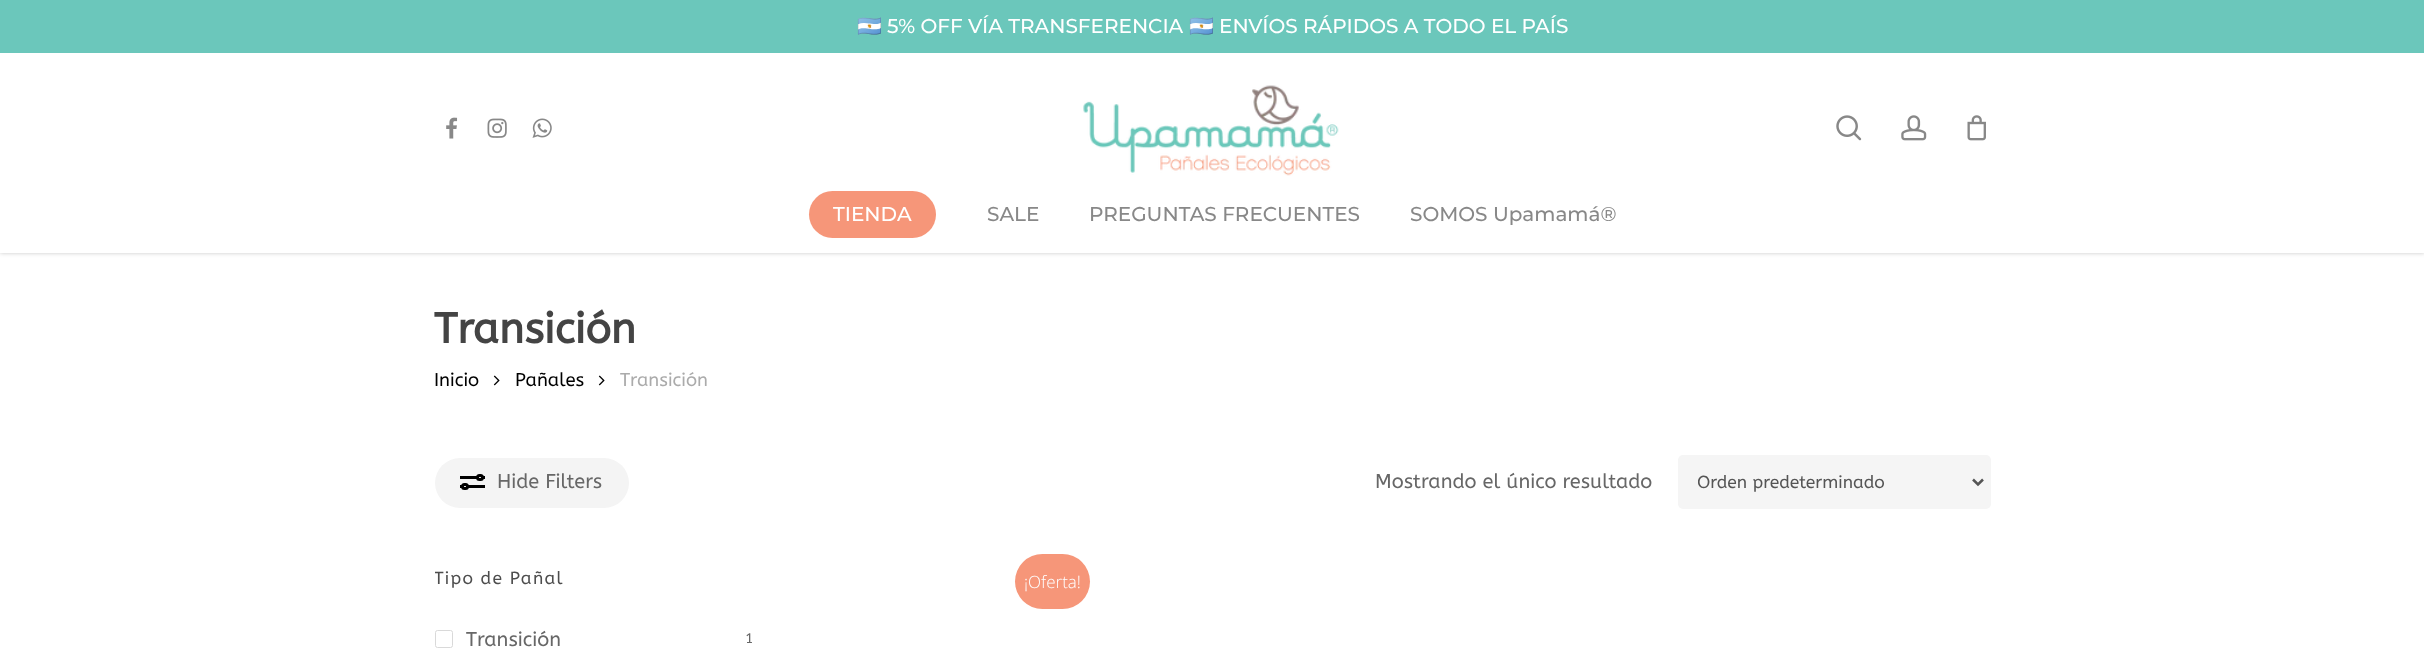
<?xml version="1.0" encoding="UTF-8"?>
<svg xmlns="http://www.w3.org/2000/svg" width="2424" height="659">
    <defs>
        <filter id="blur1" x="-50%" y="-200%" width="200%" height="500%"><feGaussianBlur stdDeviation="2"/></filter>
        <clipPath id="clip1"><rect x="1698" y="470" width="258" height="24"/></clipPath>
        <clipPath id="clip2"><rect x="435" y="559" width="389" height="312"/></clipPath>
    </defs>
    <rect width="100%" height="100%" fill="#FFFFFF"/>
    <rect x="0" y="0" width="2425" height="253" fill="#000000" fill-opacity="0.22" filter="url(#blur1)"/>
    <rect x="0" y="53" width="2424" height="200" fill="#FFFFFF"/>
    <rect x="0" y="0" width="2424" height="53" fill="#6BC7BB"/>
    <text x="857" y="33" font-family="Noto Color Emoji" font-size="20" fill="#FFFFFF">🇦🇷</text>
    <text x="887" y="33" font-family="Montserrat" font-size="20" font-weight="100" fill="#FFFFFF">5% OFF VÍA TRANSFERENCIA</text>
    <text x="1189" y="33" font-family="Noto Color Emoji" font-size="20" fill="#FFFFFF">🇦🇷</text>
    <text x="1219" y="33" font-family="Montserrat" font-size="20" font-weight="100" fill="#FFFFFF">ENVÍOS RÁPIDOS A TODO EL PAÍS</text>
    <image x="446" y="117" width="12" height="22" href="img_01.png"/>
    <image x="487" y="118" width="20" height="20" href="img_02.png"/>
    <image x="532" y="118" width="20" height="20" href="img_03.png"/>
    <image x="1083" y="85" width="256" height="91" href="img_04.png"/>
    <image x="1836" y="115" width="26" height="26" href="img_05.png"/>
    <image x="1901" y="115" width="26" height="26" href="img_06.png"/>
    <image x="1967" y="115" width="19" height="26" href="img_07.png"/>
    <rect x="809" y="191" width="127" height="47" rx="23.5" fill="#F69679"/>
    <text x="833" y="221" font-family="Montserrat" font-size="20" font-weight="100" fill="#FFFFFF">TIENDA</text>
    <text x="987" y="221" font-family="Montserrat" font-size="20" font-weight="100" fill="#888888">SALE</text>
    <text x="1089" y="221" font-family="Montserrat" font-size="20" font-weight="100" fill="#888888">PREGUNTAS FRECUENTES</text>
    <text x="1410" y="221" font-family="Montserrat" font-size="20" font-weight="100" fill="#888888">SOMOS Upamamá®</text>
    <text x="434" y="343" font-family="ABeeZee" font-size="42.5" font-weight="700" fill="#444444">Transición</text>
    <text x="434" y="386" font-family="ABeeZee" font-size="18.5" fill="#000000">Inicio</text>
    <image x="493" y="375" width="7" height="11" href="img_08.png"/>
    <text x="515" y="386" font-family="ABeeZee" font-size="18.5" fill="#000000">Pañales</text>
    <image x="598" y="375" width="7" height="11" href="img_08.png"/>
    <text x="620" y="386" font-family="ABeeZee" font-size="18.5" fill="#ABABAB">Transición</text>
    <rect x="435" y="458" width="194" height="50" rx="25" fill="#F4F4F4"/>
    <rect x="460" y="476" width="25" height="3" fill="#000000"/>
    <rect x="460" y="485" width="25" height="3" fill="#000000"/>
    <rect x="477.5" y="475.5" width="5" height="4" rx="2" fill="#FFFFFF" stroke="#000000" stroke-width="3"/>
    <rect x="462.5" y="484.5" width="5" height="4" rx="2" fill="#FFFFFF" stroke="#000000" stroke-width="3"/>
    <text x="497" y="488" font-family="ABeeZee" font-size="20" fill="#676767">Hide Filters</text>
    <text x="1375" y="488" font-family="ABeeZee" font-size="20" fill="#676767">Mostrando el único resultado</text>
    <rect x="1678" y="455" width="313" height="54" rx="5" fill="#F5F5F5"/>
    <path d="M 1973 479.5 L 1978 484.5 L 1983 479.5" fill="none" stroke="#555555" stroke-width="2.5"/>
    <g clip-path="url(#clip1)">
        <text x="1697" y="488" font-family="ABeeZee" font-size="17.5" fill="#555555">Orden predeterminado</text>
    </g>
    <g clip-path="url(#clip2)">
        <text x="434" y="584" font-family="ABeeZee" font-size="17.5" letter-spacing="1.25" fill="#4D4D4D">Tipo de Pañal</text>
    </g>
    <rect x="435.5" y="630.5" width="17" height="17" rx="2" fill="none" stroke="#D9D9D9"/>
    <text x="466" y="646" font-family="ABeeZee" font-size="20" fill="#676767">Transición</text>
    <text x="745" y="643" font-family="ABeeZee" font-size="14" fill="#676767">1</text>
    <rect x="1015" y="554" width="75" height="55" rx="27.5" fill="#F69679"/>
    <text x="1024" y="588" font-family="Open Sans" font-size="17" font-weight="300" fill="#FFFFFF">¡Oferta!</text>
</svg>
